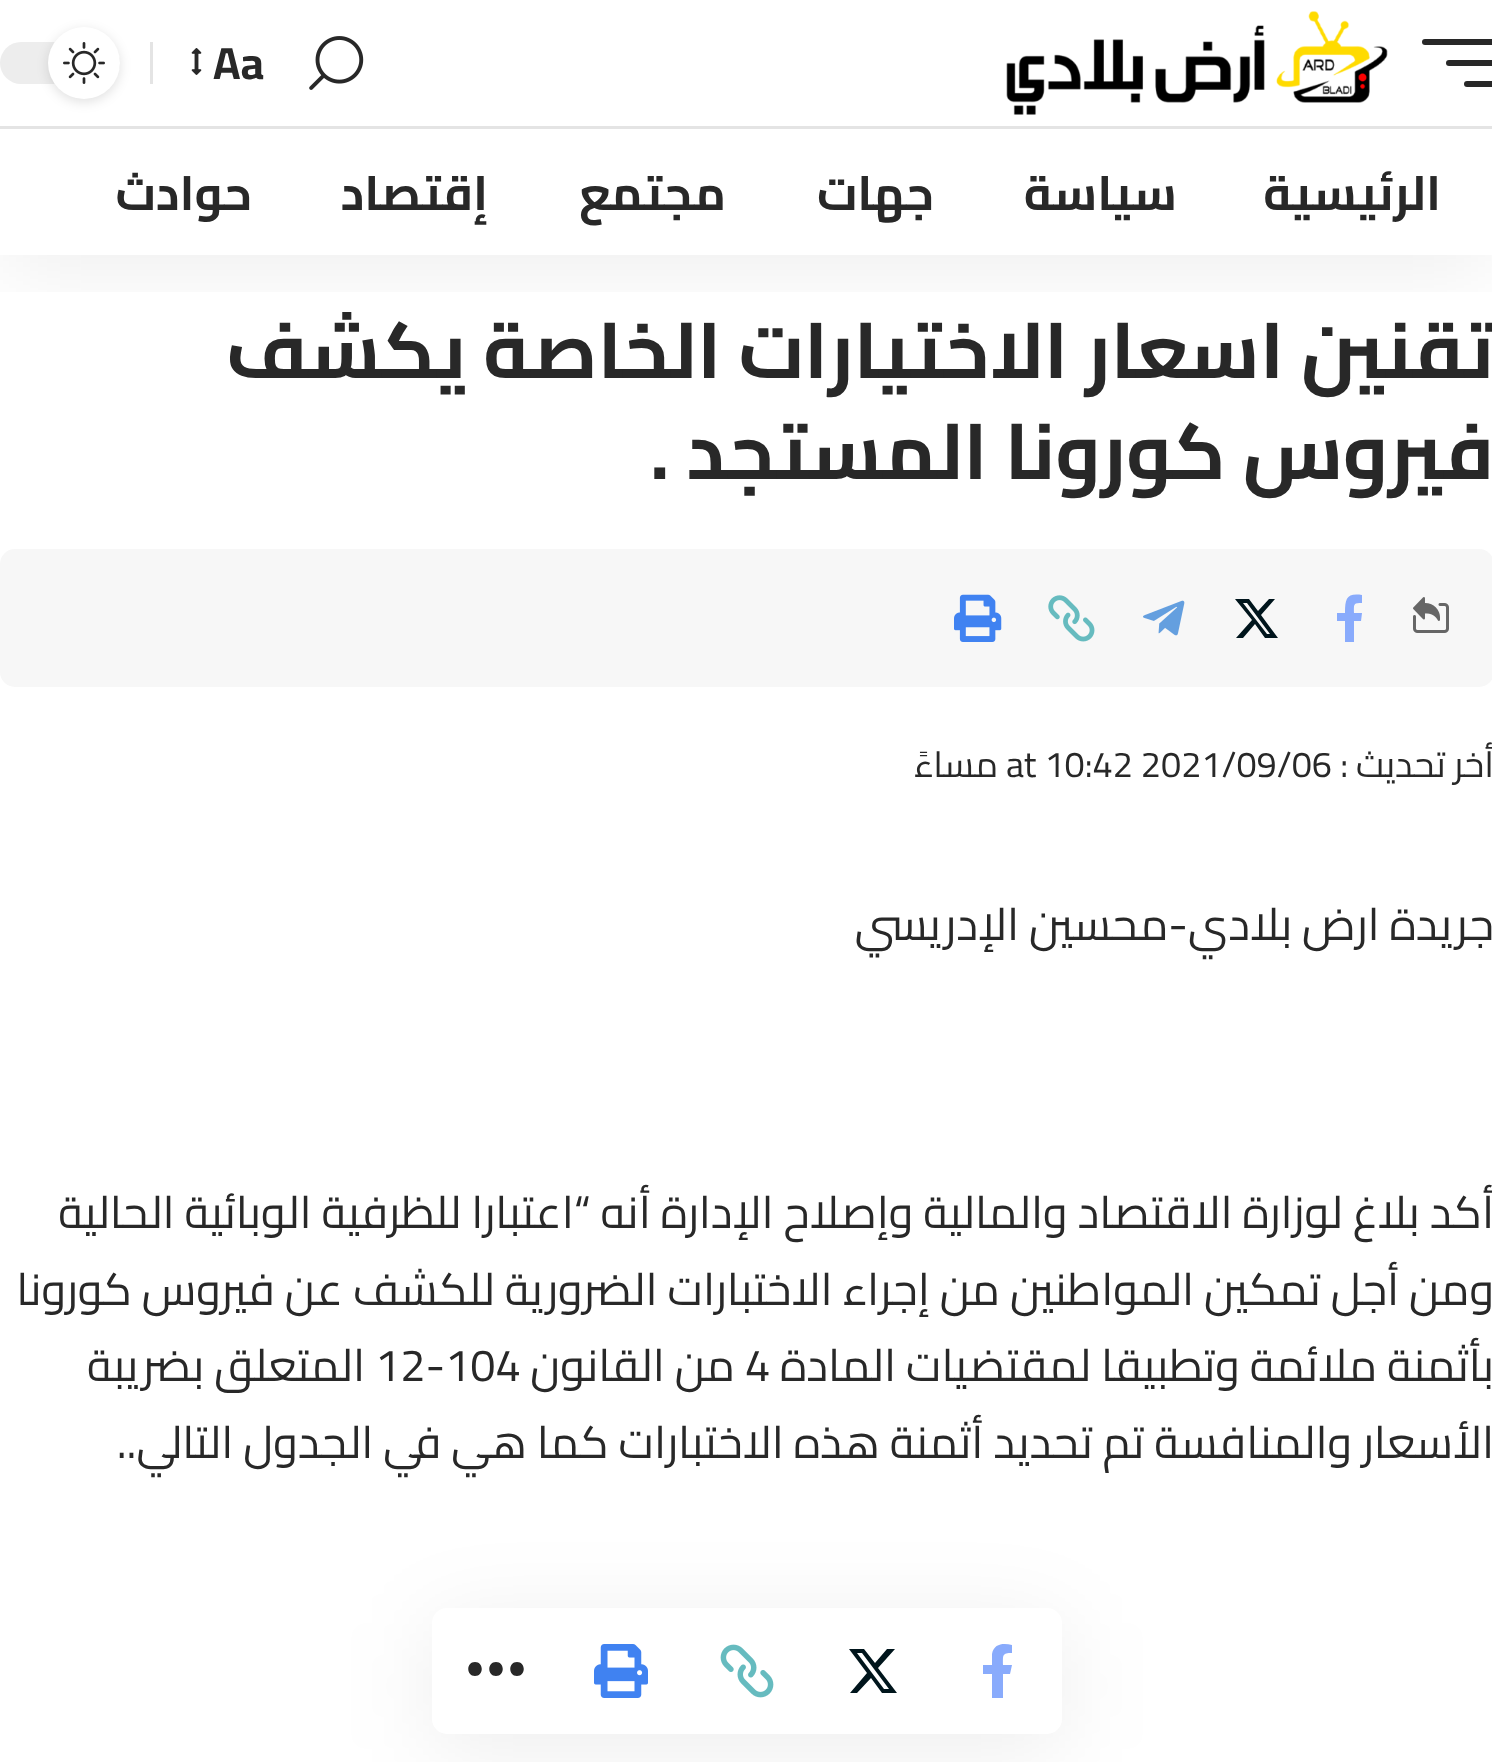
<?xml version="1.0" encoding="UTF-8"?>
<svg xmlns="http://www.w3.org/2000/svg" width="1492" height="1762">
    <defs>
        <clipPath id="clip1"><rect x="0" y="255" width="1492" height="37"/></clipPath>
        <filter id="blur1" x="-50%" y="-200%" width="200%" height="500%"><feGaussianBlur stdDeviation="45"/></filter>
        <filter id="blur2" x="-50%" y="-200%" width="200%" height="500%"><feGaussianBlur stdDeviation="6"/></filter>
    </defs>
    <rect width="100%" height="100%" fill="#FFFFFF"/>
    <g clip-path="url(#clip1)">
        <rect x="0" y="12" width="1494" height="255" fill="#000000" fill-opacity="0.07" filter="url(#blur1)"/>
    </g>
    <rect x="1422" y="39" width="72" height="6" rx="3" fill="#282828"/>
    <rect x="1446" y="60" width="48" height="6" rx="3" fill="#282828"/>
    <rect x="1464" y="81" width="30" height="6" rx="3" fill="#282828"/>
    <image x="1006" y="11" width="382" height="104" href="img_01.png"/>
    <image x="309" y="36" width="55" height="54" href="img_02.png"/>
    <text x="213" y="79" font-family="Cairo" font-size="45" font-weight="700" fill="#282828">Aa</text>
    <image x="191" y="48" width="11" height="27" href="img_03.png"/>
    <rect x="150" y="42" width="3" height="42" fill="#E4E4E4"/>
    <rect x="0" y="42" width="120" height="42" rx="21" fill="#EDEDED"/>
    <rect x="48" y="30" width="72" height="72" rx="36" fill="#000000" fill-opacity="0.12" filter="url(#blur2)"/>
    <circle cx="84" cy="63" r="36" fill="#FFFFFF"/>
    <image x="63" y="42" width="42" height="42" href="img_04.png"/>
    <rect x="0" y="126" width="1492" height="3" fill="#E4E4E4"/>
    <text x="1441" y="210" font-family="Cairo" font-size="48" font-weight="700" letter-spacing="-1" direction="rtl" fill="#282828">الرئيسية</text>
    <text x="1177" y="210" font-family="Cairo" font-size="48" font-weight="700" letter-spacing="-1" direction="rtl" fill="#282828">سياسة</text>
    <text x="934" y="210" font-family="Cairo" font-size="48" font-weight="700" letter-spacing="-1" direction="rtl" fill="#282828">جهات</text>
    <text x="726" y="210" font-family="Cairo" font-size="48" font-weight="700" letter-spacing="-1" direction="rtl" fill="#282828">مجتمع</text>
    <text x="488" y="210" font-family="Cairo" font-size="48" font-weight="700" letter-spacing="-1" direction="rtl" fill="#282828">إقتصاد</text>
    <text x="252" y="210" font-family="Cairo" font-size="48" font-weight="700" letter-spacing="-1" direction="rtl" fill="#282828">حوادث</text>
    <text font-family="Cairo" font-size="78" font-weight="700" direction="rtl" fill="#282828">
        <tspan x="1494" y="378">تقنين اسعار الاختيارات الخاصة يكشف</tspan>
        <tspan x="1494" y="479">فيروس كورونا المستجد .</tspan>
    </text>
    <rect x="0" y="549" width="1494" height="138" rx="15" fill="#F7F7F7"/>
    <image x="1413" y="597" width="36" height="36" href="img_05.png"/>
    <path d="M 1361 621 L 1362 613 H 1354 C 1354 604 1353 603 1362 603 V 595 C 1347 593 1345 598 1345 613 H 1337 V 621 H 1345 V 642 H 1354 V 621 Z" fill="#89ABFC"/>
    <path d="M 1269 599 H 1275 L 1261 615 L 1278 638 H 1265 L 1255 624 L 1243 638 H 1236 L 1252 620 L 1235 599 H 1249 L 1258 611 Z M 1267 634 H 1270 L 1247 603 H 1243 Z" fill="#00151C"/>
    <image x="1143" y="600" width="42" height="36" href="img_06.png"/>
    <image x="1048" y="595" width="47" height="47" href="img_07.png"/>
    <image x="954" y="594" width="48" height="48" href="img_08.png"/>
    <text x="1494" y="777" font-family="Cairo" font-size="36" direction="rtl" fill="#282828">أخر تحديث :</text>
    <text x="1006" y="777" font-family="Cairo" font-size="36" fill="#282828">at 10:42 2021/09/06</text>
    <text x="998" y="777" font-family="Cairo" font-size="36" direction="rtl" fill="#282828">مساءً</text>
    <text x="1494" y="940" font-family="Cairo" font-size="45" direction="rtl" fill="#282828">جريدة ارض بلادي-محسين الإدريسي</text>
    <text font-family="Cairo" font-size="45" direction="rtl" fill="#282828">
        <tspan x="1494" y="1228">أكد بلاغ لوزارة الاقتصاد والمالية وإصلاح الإدارة أنه “اعتبارا للظرفية الوبائية الحالية</tspan>
        <tspan x="1494" y="1305">ومن أجل تمكين المواطنين من إجراء الاختبارات الضرورية للكشف عن فيروس كورونا</tspan>
        <tspan x="1494" y="1381">بأثمنة ملائمة وتطبيقا لمقتضيات المادة</tspan>
    </text>
    <text x="745" y="1381" font-family="Cairo" font-size="45" fill="#282828">4</text>
    <text x="735" y="1381" font-family="Cairo" font-size="45" direction="rtl" fill="#282828">من القانون</text>
    <text x="375" y="1381" font-family="Cairo" font-size="45" fill="#282828">12-104</text>
    <text x="365" y="1381" font-family="Cairo" font-size="45" direction="rtl" fill="#282828">المتعلق بضريبة</text>
    <text x="1494" y="1458" font-family="Cairo" font-size="45" direction="rtl" fill="#282828">الأسعار والمنافسة تم تحديد أثمنة هذه الاختبارات كما هي في الجدول التالي..</text>
    <rect x="432" y="1623" width="630" height="126" rx="15" fill="#000000" fill-opacity="0.07" filter="url(#blur1)"/>
    <rect x="432" y="1608" width="630" height="126" rx="15" fill="#FFFFFF"/>
    <path d="M 1010 1674 L 1012 1665 H 1003 C 1003 1655 1002 1653 1012 1653 V 1645 C 1004 1643 994 1643 992 1654 V 1665 H 983 V 1674 H 992 V 1698 H 1003 V 1674 Z" fill="#89ABFC"/>
    <path d="M 887 1649 H 895 L 878 1668 L 897 1693 H 882 L 871 1678 L 857 1693 H 850 L 867 1673 L 849 1649 H 864 L 875 1663 Z M 884 1689 H 889 L 862 1653 H 857 Z" fill="#00151C"/>
    <image x="720" y="1644" width="54" height="54" href="img_09.png"/>
    <image x="594" y="1644" width="54" height="54" href="img_10.png"/>
    <path d="M 517 1676 C 526 1676 526 1662 517 1662 C 508 1662 508 1676 517 1676 Z M 496 1676 C 505 1676 505 1662 496 1662 C 487 1662 487 1676 496 1676 Z M 475 1676 C 484 1676 484 1662 475 1662 C 466 1662 466 1676 475 1676 Z" fill="#282828"/>
</svg>
